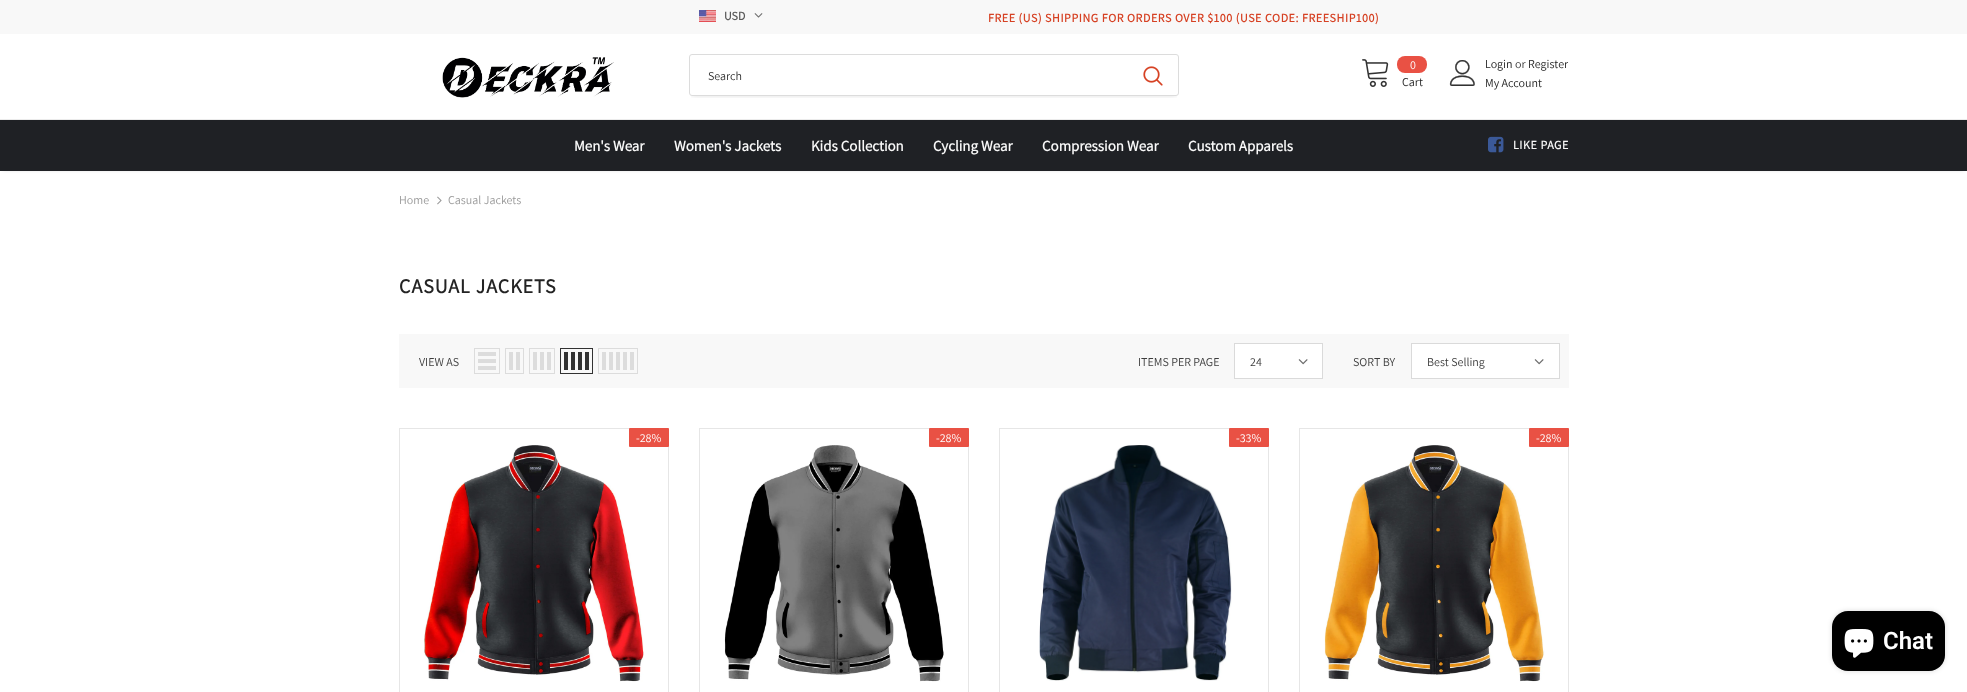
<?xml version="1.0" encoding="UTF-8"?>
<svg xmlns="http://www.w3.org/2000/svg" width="1967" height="692">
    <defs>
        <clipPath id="clip1"><rect x="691" y="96" width="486" height="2"/></clipPath>
        <filter id="blur1" x="-50%" y="-200%" width="200%" height="500%"><feGaussianBlur stdDeviation="2.5"/></filter>
        <filter id="blur2" x="-50%" y="-200%" width="200%" height="500%"><feGaussianBlur stdDeviation="1.5"/></filter>
    </defs>
    <rect width="100%" height="100%" fill="#FFFFFF"/>
    <rect x="0" y="0" width="1967" height="34" fill="#F8F8F8"/>
    <image x="699" y="10" width="17" height="12" href="img_01.png"/>
    <text x="724" y="20" font-family="Assistant" font-size="12" font-weight="700" fill="#5A5A5A">USD</text>
    <image x="754" y="13" width="9" height="5" href="img_02.png"/>
    <text x="988" y="22" font-family="Assistant" font-size="12" font-weight="700" letter-spacing="0.6" fill="#D64123">FREE (US) SHIPPING FOR ORDERS OVER $100 (USE CODE: FREESHIP100)</text>
    <rect x="0" y="119" width="1967" height="1" fill="#EBEBEB"/>
    <image x="442" y="57" width="172" height="41" href="img_03.png"/>
    <g clip-path="url(#clip1)">
        <rect x="692" y="60" width="484" height="36" fill="#000000" fill-opacity="0.12" filter="url(#blur1)"/>
    </g>
    <rect x="689.5" y="54.5" width="489" height="41" rx="2.5" fill="none" stroke="#DCDCDC"/>
    <text x="708" y="80" font-family="Assistant" font-size="12" fill="#323232">Search</text>
    <image x="1143" y="66" width="20" height="20" href="img_04.png"/>
    <image x="1362" y="59" width="27" height="28" href="img_05.png"/>
    <rect x="1397" y="56" width="30" height="17" rx="8" fill="#E95144"/>
    <text x="1410" y="69" font-family="Assistant" font-size="12" fill="#FFFFFF">0</text>
    <text x="1402" y="86" font-family="Assistant" font-size="12" fill="#232323">Cart</text>
    <image x="1449" y="60" width="26" height="26" href="img_06.png"/>
    <text x="1485" y="68" font-family="Assistant" font-size="12" fill="#232323">Login</text>
    <text x="1515" y="68" font-family="Assistant" font-size="12" fill="#3C3C3C">or</text>
    <text x="1528" y="68" font-family="Assistant" font-size="12" fill="#232323">Register</text>
    <text x="1485" y="87" font-family="Assistant" font-size="12" fill="#232323">My Account</text>
    <rect x="3" y="126" width="1961" height="45" fill="#000000" fill-opacity="0.1" filter="url(#blur2)"/>
    <rect x="0" y="120" width="1967" height="51" fill="#1F2125"/>
    <text x="574" y="151" font-family="Assistant" font-size="15" font-weight="700" fill="#F8F8F8">Men's Wear</text>
    <text x="674" y="151" font-family="Assistant" font-size="15" font-weight="700" fill="#F8F8F8">Women's Jackets</text>
    <text x="811" y="151" font-family="Assistant" font-size="15" font-weight="700" fill="#F8F8F8">Kids Collection</text>
    <text x="933" y="151" font-family="Assistant" font-size="15" font-weight="700" fill="#F8F8F8">Cycling Wear</text>
    <text x="1042" y="151" font-family="Assistant" font-size="15" font-weight="700" fill="#F8F8F8">Compression Wear</text>
    <text x="1188" y="151" font-family="Assistant" font-size="15" font-weight="700" fill="#F8F8F8">Custom Apparels</text>
    <image x="1488" y="136" width="16" height="17" href="img_07.png"/>
    <text x="1513" y="149" font-family="Assistant" font-size="12" font-weight="700" letter-spacing="0.6" fill="#F8F8F8">LIKE PAGE</text>
    <text x="399" y="204" font-family="Assistant" font-size="12" fill="#999999">Home</text>
    <image x="437" y="196" width="5" height="9" href="img_08.png"/>
    <text x="448" y="204" font-family="Assistant" font-size="12" fill="#999999">Casual Jackets</text>
    <text x="399" y="293" font-family="Assistant" font-size="20" font-weight="700" letter-spacing="1" fill="#232323">CASUAL JACKETS</text>
    <rect x="399" y="334" width="1170" height="54" fill="#F8F8F8"/>
    <text x="419" y="366" font-family="Assistant" font-size="12" fill="#3C3C3C">VIEW AS</text>
    <rect x="474.5" y="348.5" width="25" height="25" fill="none" stroke="#DCDCDC"/>
    <rect x="478" y="366" width="18" height="4" fill="#DCDCDC"/>
    <rect x="478" y="359" width="18" height="4" fill="#DCDCDC"/>
    <rect x="478" y="352" width="18" height="4" fill="#DCDCDC"/>
    <rect x="505.5" y="348.5" width="18" height="25" fill="none" stroke="#DCDCDC"/>
    <rect x="516" y="352" width="4" height="18" fill="#DCDCDC"/>
    <rect x="509" y="352" width="4" height="18" fill="#DCDCDC"/>
    <rect x="529.5" y="348.5" width="25" height="25" fill="none" stroke="#DCDCDC"/>
    <rect x="547" y="352" width="4" height="18" fill="#DCDCDC"/>
    <rect x="540" y="352" width="4" height="18" fill="#DCDCDC"/>
    <rect x="533" y="352" width="4" height="18" fill="#DCDCDC"/>
    <rect x="560.5" y="348.5" width="32" height="25" fill="none" stroke="#323232"/>
    <rect x="585" y="352" width="4" height="18" fill="#323232"/>
    <rect x="578" y="352" width="4" height="18" fill="#323232"/>
    <rect x="571" y="352" width="4" height="18" fill="#323232"/>
    <rect x="564" y="352" width="4" height="18" fill="#323232"/>
    <rect x="598.5" y="348.5" width="39" height="25" fill="none" stroke="#DCDCDC"/>
    <rect x="630" y="352" width="4" height="18" fill="#DCDCDC"/>
    <rect x="623" y="352" width="4" height="18" fill="#DCDCDC"/>
    <rect x="616" y="352" width="4" height="18" fill="#DCDCDC"/>
    <rect x="609" y="352" width="4" height="18" fill="#DCDCDC"/>
    <rect x="602" y="352" width="4" height="18" fill="#DCDCDC"/>
    <text x="1138" y="366" font-family="Assistant" font-size="12" fill="#3C3C3C">ITEMS PER PAGE</text>
    <rect x="1234.5" y="343.5" width="88" height="35" fill="#FFFFFF" stroke="#DADADA"/>
    <text x="1250" y="366" font-family="Assistant" font-size="12" fill="#3C3C3C">24</text>
    <image x="1298" y="359" width="10" height="6" href="img_09.png"/>
    <text x="1353" y="366" font-family="Assistant" font-size="12" fill="#3C3C3C">SORT BY</text>
    <rect x="1411.5" y="343.5" width="148" height="35" fill="#FFFFFF" stroke="#DADADA"/>
    <text x="1427" y="366" font-family="Assistant" font-size="12" fill="#3C3C3C">Best Selling</text>
    <image x="1534" y="359" width="10" height="6" href="img_09.png"/>
    <rect x="399.5" y="428.5" width="269" height="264" fill="none" stroke="#E6E6E6"/>
    <image x="424" y="445" width="220" height="237" href="img_10.png"/>
    <rect x="629" y="428" width="40" height="19" rx="1" fill="#E95144"/>
    <text x="636" y="442" font-family="Assistant" font-size="12" fill="#FFFFFF">-28%</text>
    <rect x="699.5" y="428.5" width="269" height="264" fill="none" stroke="#E6E6E6"/>
    <image x="724" y="445" width="220" height="237" href="img_11.png"/>
    <rect x="929" y="428" width="40" height="19" rx="1" fill="#E95144"/>
    <text x="936" y="442" font-family="Assistant" font-size="12" fill="#FFFFFF">-28%</text>
    <rect x="999.5" y="428.5" width="269" height="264" fill="none" stroke="#E6E6E6"/>
    <image x="1039" y="445" width="193" height="236" href="img_12.png"/>
    <rect x="1229" y="428" width="40" height="19" rx="1" fill="#E95144"/>
    <text x="1236" y="442" font-family="Assistant" font-size="12" fill="#FFFFFF">-33%</text>
    <rect x="1299.5" y="428.5" width="269" height="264" fill="none" stroke="#E6E6E6"/>
    <image x="1324" y="445" width="221" height="237" href="img_13.png"/>
    <rect x="1529" y="428" width="40" height="19" rx="1" fill="#E95144"/>
    <text x="1536" y="442" font-family="Assistant" font-size="12" fill="#FFFFFF">-28%</text>
    <rect x="1832" y="611" width="113" height="60" rx="16" fill="#000000" fill-opacity="0.15" filter="url(#blur1)"/>
    <rect x="1832" y="611" width="113" height="60" rx="16" fill="#000000"/>
    <image x="1844" y="629" width="30" height="29" href="img_14.png"/>
    <text x="1883" y="649" font-family="Roboto" font-size="24" font-weight="600" fill="#FFFFFF">Chat</text>
</svg>
